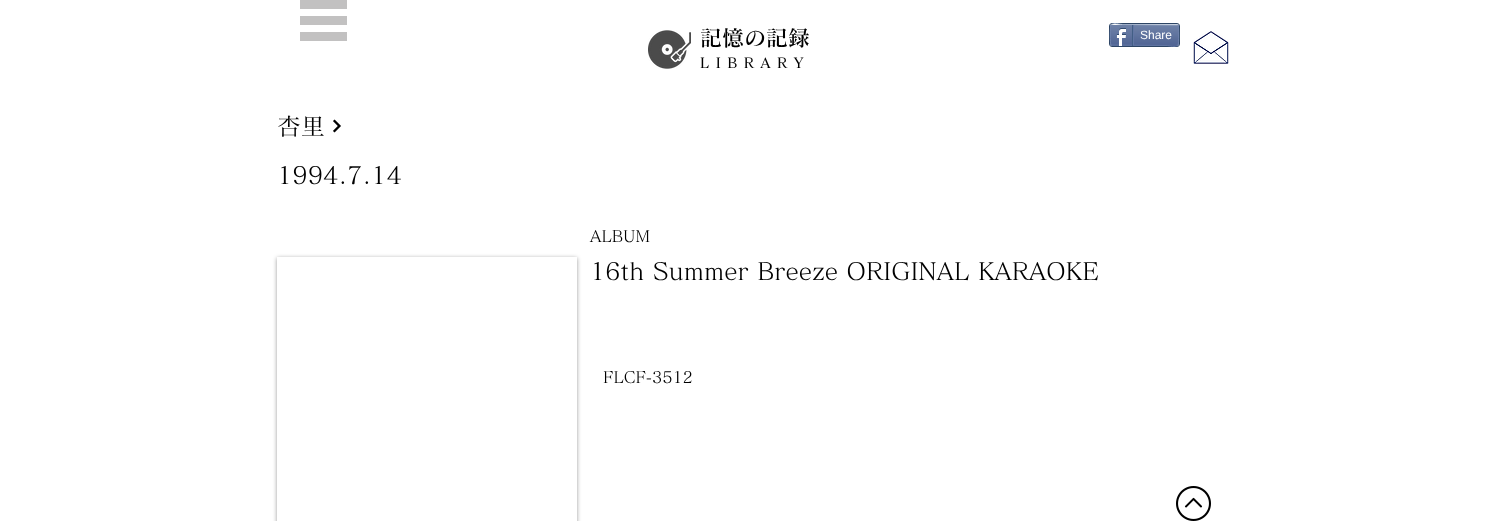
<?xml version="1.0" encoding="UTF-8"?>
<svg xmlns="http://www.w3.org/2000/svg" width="1511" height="521">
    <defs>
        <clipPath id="clip1"><path d="M 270 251 H 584 V 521 H 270 Z M 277 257 H 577 V 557 H 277 Z" clip-rule="evenodd"/></clipPath>
        <filter id="blur1" x="-50%" y="-200%" width="200%" height="500%"><feGaussianBlur stdDeviation="2"/></filter>
    </defs>
    <rect width="100%" height="100%" fill="#FFFFFF"/>
    <rect x="300" y="0" width="47" height="9" fill="#C2C1C1"/>
    <rect x="300" y="16" width="47" height="9" fill="#C2C1C1"/>
    <rect x="300" y="32" width="47" height="9" fill="#C2C1C1"/>
    <image x="648" y="30" width="43" height="39" href="img_01.png"/>
    <text x="700" y="46" font-family="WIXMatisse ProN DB" font-size="22" font-weight="600" fill="#000000">記憶の記録</text>
    <text x="700" y="68" font-family="WIXMatisse ProN DB" font-size="14" font-weight="600" letter-spacing="6.5" fill="#000000">LIBRARY</text>
    <rect x="1109.5" y="23.5" width="70" height="23" rx="2.5" fill="none" stroke="#2D4565"/>
    <image x="1110" y="25" width="69" height="21" href="img_02.png"/>
    <path d="M 1111 25 C 1114 22 1119 24.5 1123 24.5 L 1178 25" fill="none" stroke="#9AABC6"/>
    <path d="M 1178 25 C 1179 25.5 1179 44.5 1178 45" fill="none" stroke="#6F83AD"/>
    <path d="M 1178 45 C 1175 48 1170 45.5 1166 45.5 L 1111 45" fill="none" stroke="#6176A3"/>
    <path d="M 1111 45 C 1110 44.5 1110 25.5 1111 25" fill="none" stroke="#6F83AD"/>
    <image x="1116" y="28" width="10" height="18" href="img_03.png"/>
    <rect x="1132" y="25" width="1" height="21" fill="#425E85"/>
    <text x="1140" y="39" font-family="Liberation Sans" font-size="12" fill="#FFFFFF">Share</text>
    <rect x="1133" y="25" width="1" height="20" fill="#6176A3"/>
    <image x="1193" y="31" width="36" height="33" href="img_04.png"/>
    <text x="277" y="135" font-family="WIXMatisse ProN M" font-size="24" font-weight="500" fill="#000000">杏里</text>
    <image x="333" y="119" width="8" height="14" href="img_05.png"/>
    <text x="277" y="184" font-family="WIXMatisse ProN M" font-size="24" font-weight="500" fill="#000000">1994.7.14</text>
    <text x="590" y="242" font-family="WIXMatisse ProN M" font-size="16" font-weight="500" fill="#000000">ALBUM</text>
    <g clip-path="url(#clip1)">
        <rect x="277" y="258" width="300" height="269" fill="#000000" fill-opacity="0.4" filter="url(#blur1)"/>
    </g>
    <text x="590" y="280" font-family="WIXMatisse ProN M" font-size="24" font-weight="500" fill="#000000">16th Summer Breeze ORIGINAL KARAOKE</text>
    <text x="603" y="383" font-family="WIXMatisse ProN M" font-size="16" font-weight="500" fill="#000000">FLCF-3512</text>
    <image x="1176" y="486" width="35" height="35" href="img_06.png"/>
</svg>
